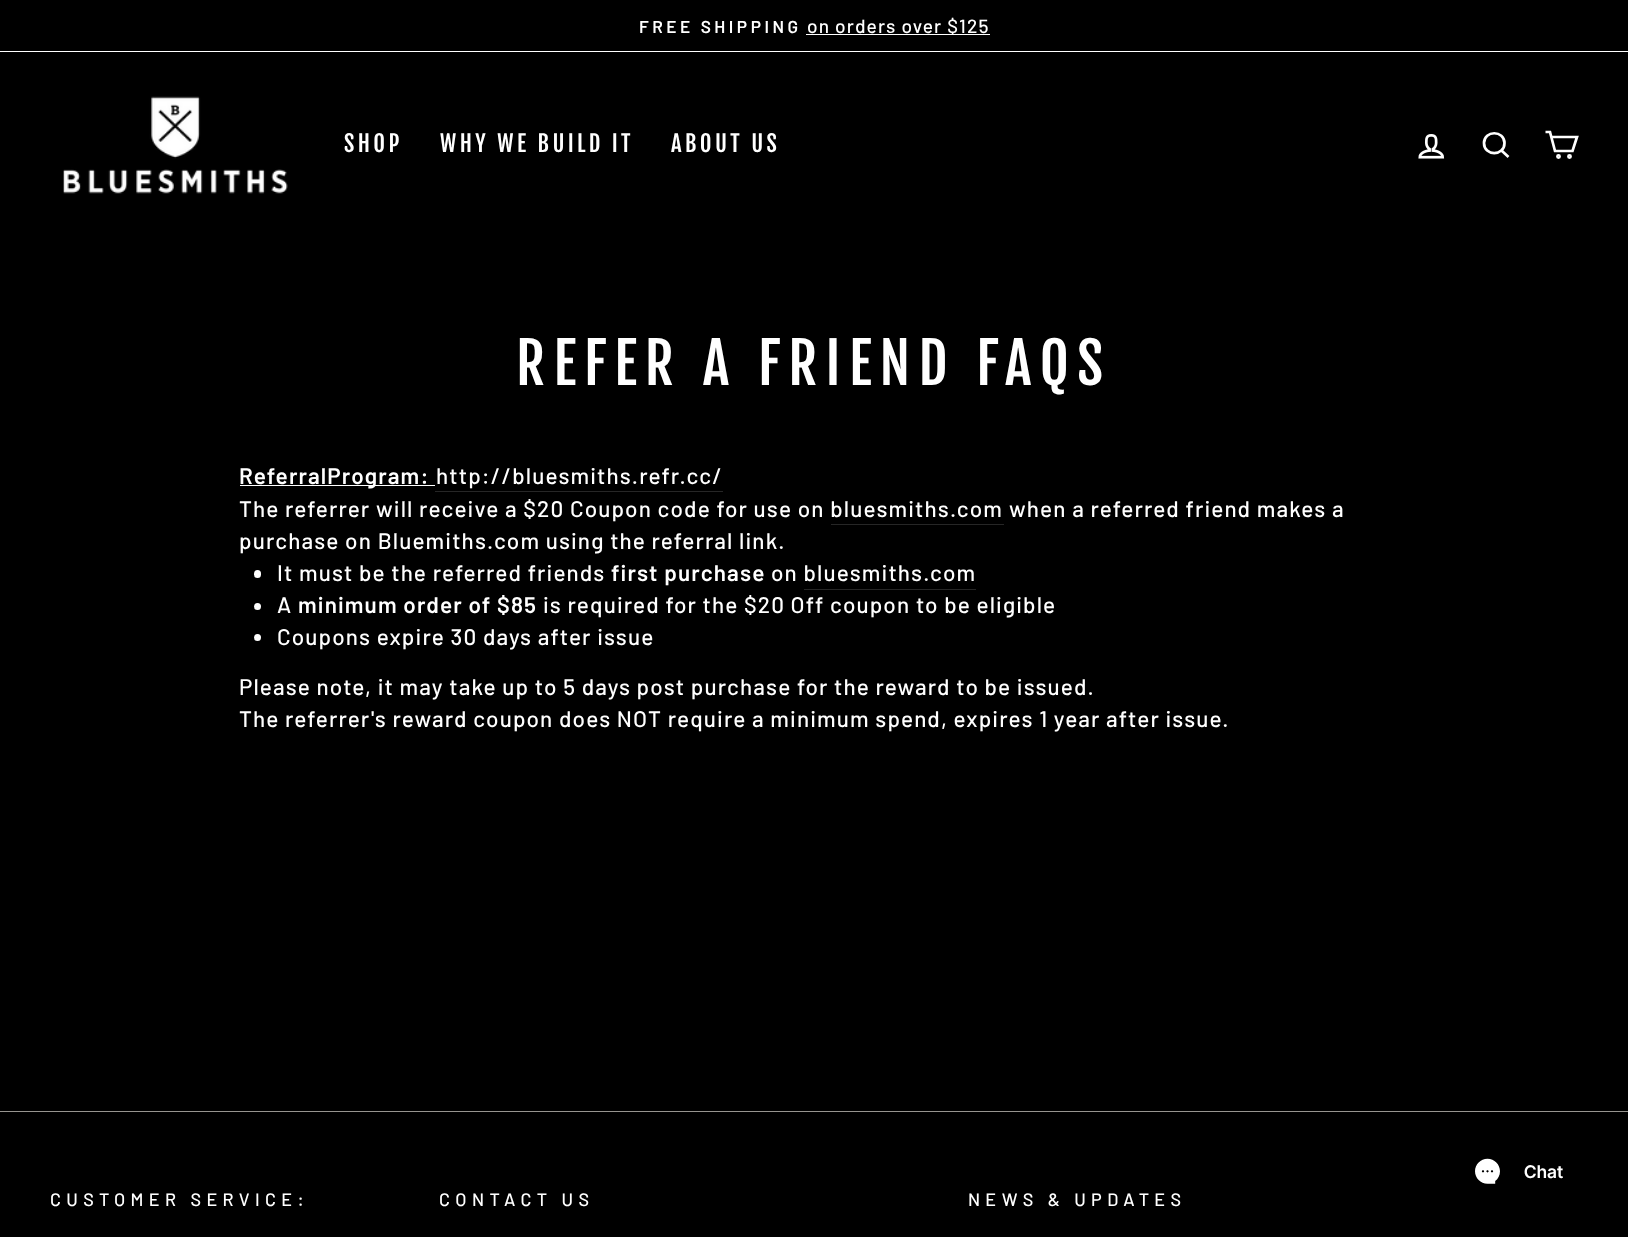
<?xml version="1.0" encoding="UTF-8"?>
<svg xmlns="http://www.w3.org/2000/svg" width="1628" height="1237">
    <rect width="100%" height="100%" fill="#000000"/>
    <rect x="0" y="51" width="1628" height="1" fill="#FFFFFF"/>
    <text x="639" y="33" font-family="Barlow" font-size="17.25" font-weight="600" letter-spacing="3.5" fill="#FFFFFF">FREE SHIPPING</text>
    <rect x="806" y="34" width="184" height="1" fill="#FFFFFF"/>
    <text x="807" y="33" font-family="Barlow" font-size="19.1" font-weight="500" letter-spacing="1.12" fill="#FFFFFF">on orders over $125</text>
    <image x="63" y="96" width="225" height="98" href="img_01.png"/>
    <text x="344" y="152" font-family="Fjalla One" font-size="22.5" letter-spacing="3.4" fill="#FFFFFF">SHOP</text>
    <text x="440" y="152" font-family="Fjalla One" font-size="22.5" letter-spacing="3.4" fill="#FFFFFF">WHY WE BUILD IT</text>
    <text x="671" y="152" font-family="Fjalla One" font-size="22.5" letter-spacing="3.4" fill="#FFFFFF">ABOUT US</text>
    <image x="1418" y="134" width="27" height="25" href="img_02.png"/>
    <path d="M 1504.5 143 C 1504.5 156.5 1484 156.5 1484 143 C 1484 130 1504.5 130 1504.5 143 Z M 1508.5 157 L 1501.5 150.5" fill="none" stroke="#FFFFFF" stroke-width="2.7"/>
    <path d="M 1551.5 137 H 1577 L 1572.5 151 H 1555 L 1550 132 H 1545.5" fill="none" stroke="#FFFFFF" stroke-width="2.7"/>
    <circle cx="1558.5" cy="156.5" r="1.1" fill="none" stroke="#FFFFFF" stroke-width="2.7"/>
    <circle cx="1569.5" cy="156.5" r="1.1" fill="none" stroke="#FFFFFF" stroke-width="2.7"/>
    <text x="516" y="385" font-family="Fjalla One" font-size="56.25" letter-spacing="8.4" fill="#FFFFFF">REFER A FRIEND FAQS</text>
    <rect x="240" y="485" width="195" height="1" fill="#FFFFFF"/>
    <text x="239" y="484" font-family="Barlow" font-size="22.5" font-weight="600" letter-spacing="1.12" fill="#FFFFFF">ReferralProgram:</text>
    <rect x="435" y="491" width="288" height="1" fill="#262626"/>
    <text x="436" y="484" font-family="Barlow" font-size="22.5" font-weight="500" letter-spacing="1.12" fill="#FFFFFF">http://bluesmiths.refr.cc/</text>
    <text x="239" y="517" font-family="Barlow" font-size="22.5" font-weight="500" letter-spacing="1.12" fill="#FFFFFF">The referrer will receive a $20 Coupon code for use on bluesmiths.com</text>
    <text x="1009" y="517" font-family="Barlow" font-size="22.5" font-weight="500" letter-spacing="1.12" fill="#FFFFFF">when a referred friend makes a</text>
    <rect x="831" y="524" width="173" height="1" fill="#262626"/>
    <text x="239" y="549" font-family="Barlow" font-size="22.5" font-weight="500" letter-spacing="1.12" fill="#FFFFFF">purchase on Bluemiths.com using the referral link.</text>
    <rect x="254" y="570" width="7" height="8" rx="3.5" fill="#FFFFFF"/>
    <text x="277" y="581" font-family="Barlow" font-size="22.5" font-weight="500" letter-spacing="1.12" fill="#FFFFFF">It must be the referred friends</text>
    <text x="611" y="581" font-family="Barlow" font-size="22.5" font-weight="600" letter-spacing="1.12" fill="#FFFFFF">first purchase</text>
    <text x="771" y="581" font-family="Barlow" font-size="22.5" font-weight="500" letter-spacing="1.12" fill="#FFFFFF">on bluesmiths.com</text>
    <rect x="804" y="589" width="172" height="1" fill="#262626"/>
    <circle cx="257.5" cy="606.5" r="3.5" fill="#FFFFFF"/>
    <text x="277" y="613" font-family="Barlow" font-size="22.5" font-weight="500" letter-spacing="1.12" fill="#FFFFFF">A</text>
    <text x="298" y="613" font-family="Barlow" font-size="22.5" font-weight="600" letter-spacing="1.12" fill="#FFFFFF">minimum order of $85</text>
    <text x="543" y="613" font-family="Barlow" font-size="22.5" font-weight="500" letter-spacing="1.12" fill="#FFFFFF">is required for the $20 Off coupon to be eligible</text>
    <circle cx="257.5" cy="637.5" r="3.5" fill="#FFFFFF"/>
    <text x="277" y="645" font-family="Barlow" font-size="22.5" font-weight="500" letter-spacing="1.12" fill="#FFFFFF">Coupons expire 30 days after issue</text>
    <text font-family="Barlow" font-size="22.5" font-weight="500" letter-spacing="1.12" fill="#FFFFFF">
        <tspan x="239" y="695">Please note, it may take up to 5 days post purchase for the reward to be issued.</tspan>
        <tspan x="239" y="727">The referrer's reward coupon does NOT require a minimum spend, expires 1 year after issue.</tspan>
    </text>
    <rect x="0" y="1111" width="1628" height="1" fill="#96948F"/>
    <text x="50" y="1206" font-family="Barlow" font-size="18" font-weight="500" letter-spacing="5.4" fill="#FFFFFF">CUSTOMER SERVICE:</text>
    <text x="439" y="1206" font-family="Barlow" font-size="18" font-weight="500" letter-spacing="5.4" fill="#FFFFFF">CONTACT US</text>
    <text x="968" y="1206" font-family="Barlow" font-size="18" font-weight="500" letter-spacing="5.4" fill="#FFFFFF">NEWS &amp; UPDATES</text>
    <image x="1475" y="1158" width="88" height="26" href="img_03.png"/>
</svg>
